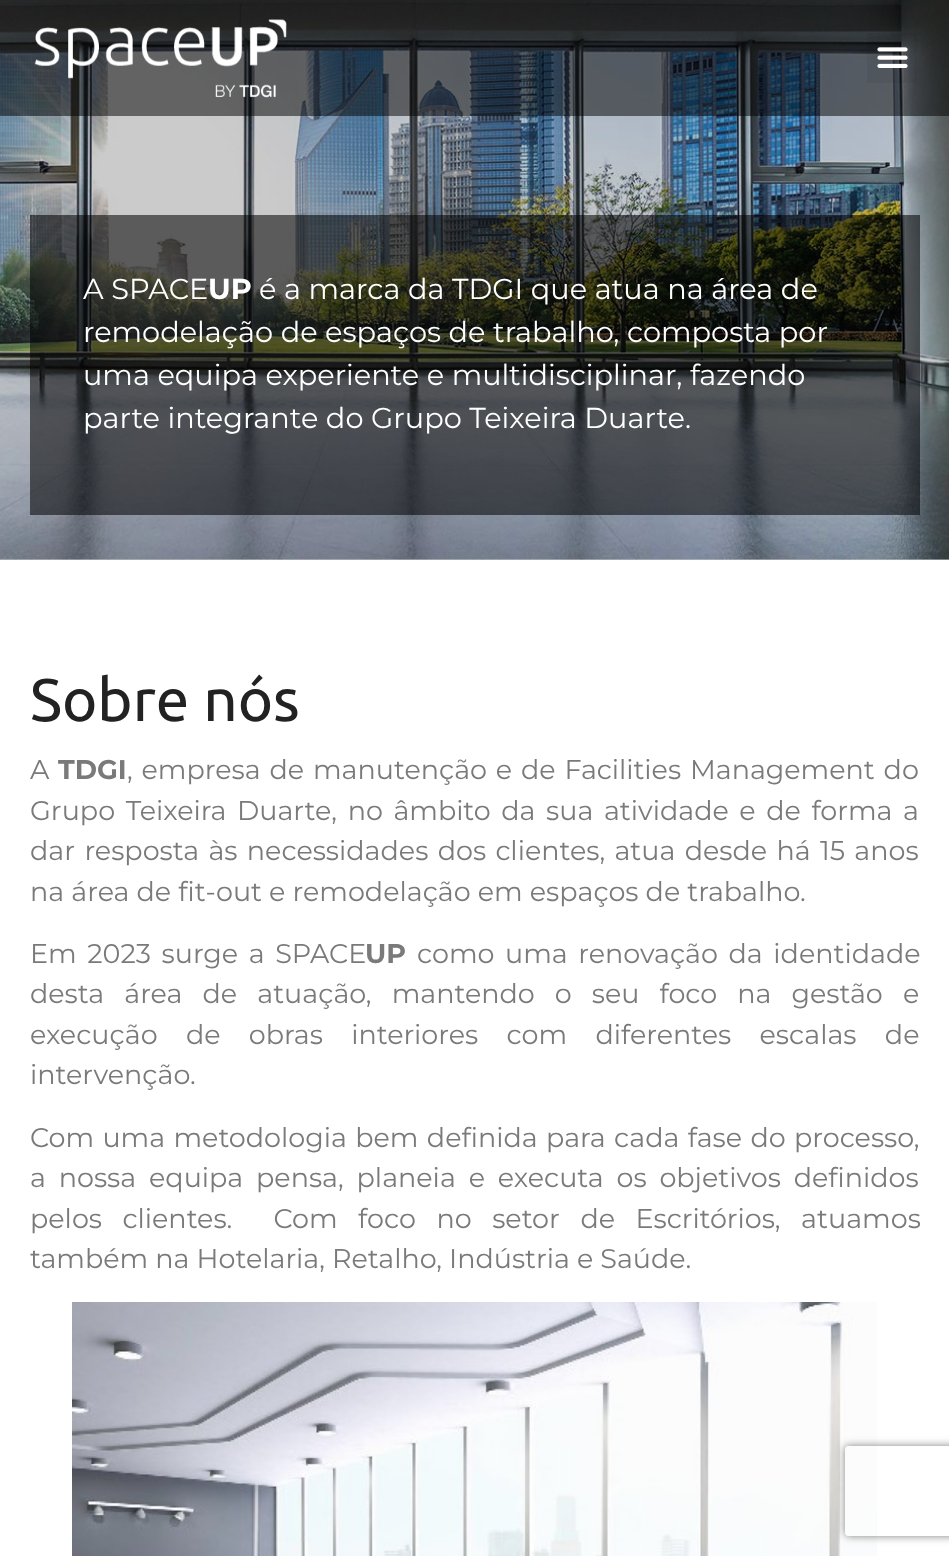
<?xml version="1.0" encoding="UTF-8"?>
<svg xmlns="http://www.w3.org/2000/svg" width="949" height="1556">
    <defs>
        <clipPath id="clip1"><path d="M 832 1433 H 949 V 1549 H 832 Z M 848 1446 H 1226 C 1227.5 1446 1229 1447.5 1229 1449 V 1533 C 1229 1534.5 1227.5 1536 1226 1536 H 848 C 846.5 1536 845 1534.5 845 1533 V 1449 C 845 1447.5 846.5 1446 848 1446 Z" clip-rule="evenodd"/></clipPath>
        <filter id="blur1" x="-50%" y="-200%" width="200%" height="500%"><feGaussianBlur stdDeviation="4"/></filter>
    </defs>
    <rect width="100%" height="100%" fill="#FFFFFF"/>
    <rect x="0" y="559" width="949" height="1" fill="#CBCBCB"/>
    <image x="0" y="0" width="949" height="560" href="img_03.png"/>
    <rect x="0" y="0" width="949" height="116" fill="#000000" fill-opacity="0.51"/>
    <image x="34" y="19" width="253" height="79" href="img_01.png"/>
    <rect x="867" y="33" width="50" height="50" fill="#000000" fill-opacity="0.05"/>
    <image x="877" y="47" width="31" height="21" href="img_02.png"/>
    <rect x="30" y="215" width="890" height="300" fill="#000000" fill-opacity="0.55"/>
    <text x="83" y="299" font-family="Montserrat" font-size="28.8" fill="#FFFFFF">A SPACE</text>
    <text x="208" y="299" font-family="Montserrat" font-size="28.8" font-weight="700" fill="#FFFFFF">UP</text>
    <text x="259" y="299" font-family="Montserrat" font-size="28.8" fill="#FFFFFF">é a marca da TDGI que atua na área de</text>
    <text font-family="Montserrat" font-size="28.8" fill="#FFFFFF">
        <tspan x="83" y="342">remodelação de espaços de trabalho, composta por</tspan>
        <tspan x="83" y="385">uma equipa experiente e multidisciplinar, fazendo</tspan>
        <tspan x="83" y="428">parte integrante do Grupo Teixeira Duarte.</tspan>
    </text>
    <text x="30" y="721" font-family="Ubuntu" font-size="60" fill="#222222">Sobre nós</text>
    <text x="30" y="779" font-family="Montserrat" font-size="27" fill="#7A7A7A">A</text>
    <text x="58" y="779" font-family="Montserrat" font-size="27" font-weight="700" fill="#7A7A7A">TDGI</text>
    <text x="127" y="779" word-spacing="1.75" font-family="Montserrat" font-size="27" fill="#7A7A7A">, empresa de manutenção e de Facilities Management do</text>
    <text font-family="Montserrat" font-size="27" fill="#7A7A7A">
        <tspan x="30" y="820" word-spacing="3.5">Grupo Teixeira Duarte, no âmbito da sua atividade e de forma a</tspan>
        <tspan x="30" y="860" word-spacing="2.25">dar resposta às necessidades dos clientes, atua desde há 15 anos</tspan>
        <tspan x="30" y="901">na área de fit-out e remodelação em espaços de trabalho.</tspan>
    </text>
    <text x="30" y="963" word-spacing="3.5" font-family="Montserrat" font-size="27" fill="#7A7A7A">Em 2023 surge a SPACE</text>
    <text x="365" y="963" font-family="Montserrat" font-size="27" font-weight="700" fill="#7A7A7A">UP</text>
    <text x="417" y="963" word-spacing="3.5" font-family="Montserrat" font-size="27" fill="#7A7A7A">como uma renovação da identidade</text>
    <text font-family="Montserrat" font-size="27" fill="#7A7A7A">
        <tspan x="30" y="1003" word-spacing="13">desta área de atuação, mantendo o seu foco na gestão e</tspan>
        <tspan x="30" y="1044" word-spacing="21.25">execução de obras interiores com diferentes escalas de</tspan>
        <tspan x="30" y="1084">intervenção.</tspan>
    </text>
    <text font-family="Montserrat" font-size="27" fill="#7A7A7A" xml:space="preserve"><tspan x="30" y="1147" word-spacing="1.25">Com uma metodologia bem definida para cada fase do processo,</tspan><tspan x="30" y="1187" word-spacing="5.75">a nossa equipa pensa, planeia e executa os objetivos definidos</tspan><tspan x="30" y="1228" word-spacing="13.5">pelos clientes.  Com foco no setor de Escritórios, atuamos</tspan><tspan x="30" y="1268">também na Hotelaria, Retalho, Indústria e Saúde.</tspan></text>
    <image x="72" y="1302" width="805" height="254" href="img_04.png"/>
    <g clip-path="url(#clip1)">
        <rect x="845" y="1446" width="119" height="90" rx="3" fill="#808080" filter="url(#blur1)"/>
    </g>
</svg>
